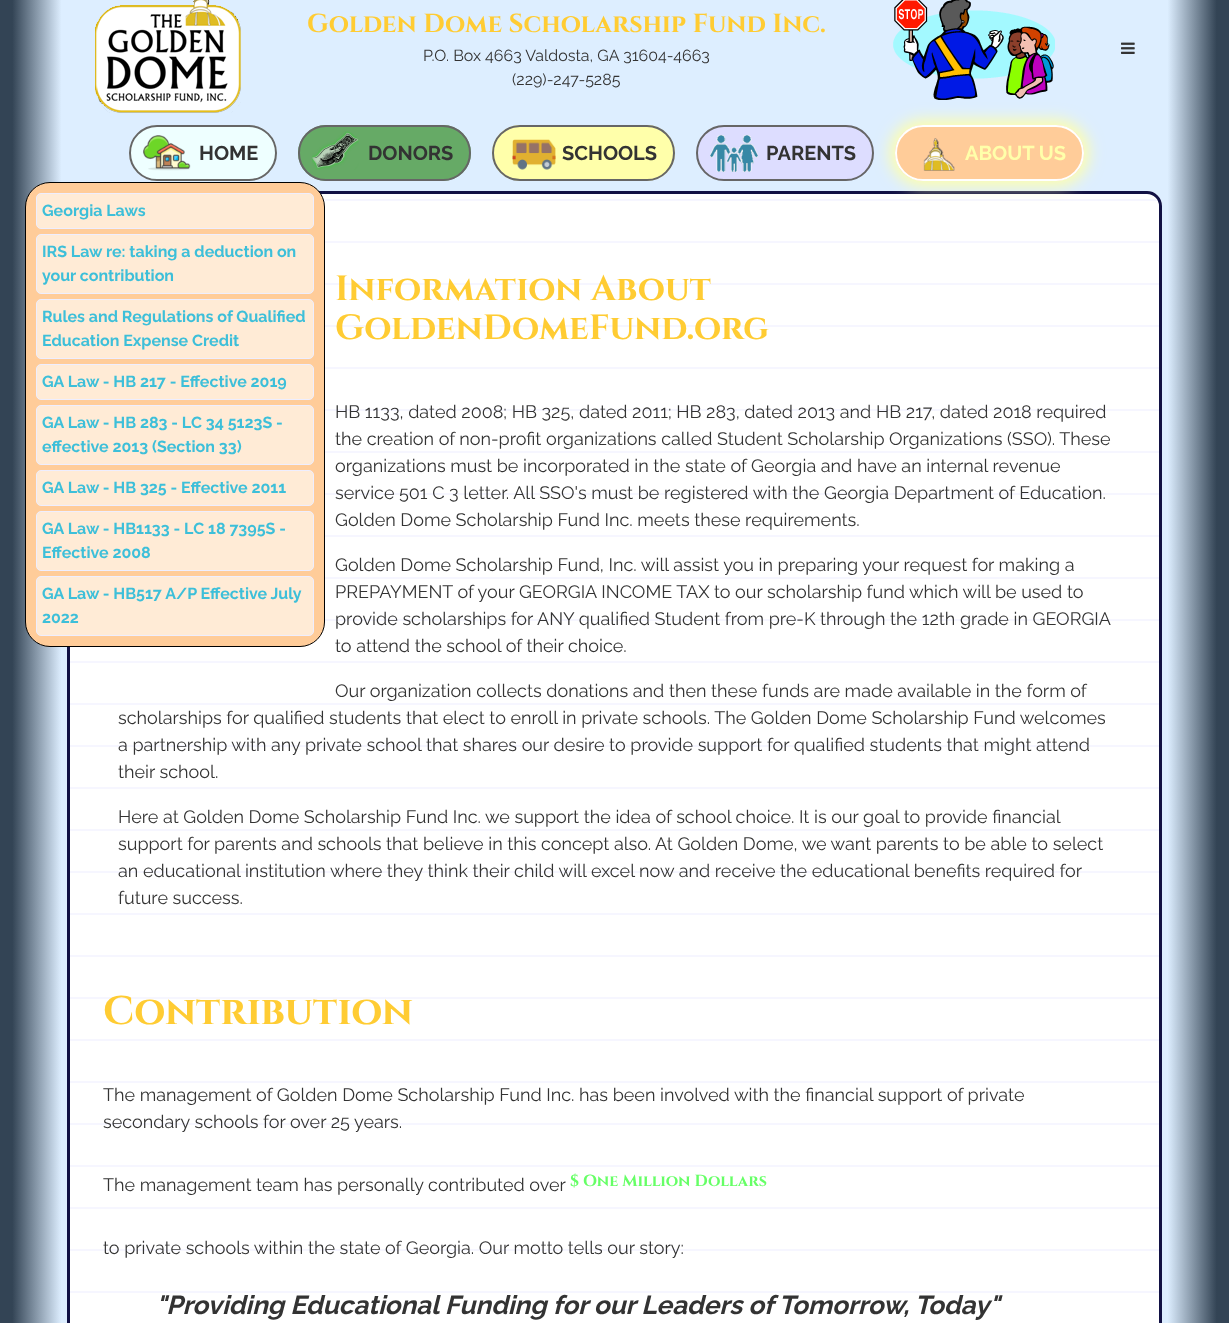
<?xml version="1.0" encoding="UTF-8"?>
<svg xmlns="http://www.w3.org/2000/svg" width="1229" height="1323">
    <defs>
        <linearGradient id="g1" gradientUnits="userSpaceOnUse" x1="0" y1="776" x2="1229" y2="776"><stop offset="0.01" stop-color="#334455"/><stop offset="0.05" stop-color="#DDEEFF"/><stop offset="0.95" stop-color="#DDEEFF"/><stop offset="0.99" stop-color="#334455"/></linearGradient>
        <filter id="blur1" x="-50%" y="-200%" width="200%" height="500%"><feGaussianBlur stdDeviation="7.5"/></filter>
    </defs>
    <rect width="100%" height="100%" fill="#FFFFFF"/>
    <rect x="0" y="0" width="1229" height="1323" fill="url(#g1)"/>
    <image x="95" y="0" width="146" height="113" href="img_01.png"/>
    <text x="307" y="32" font-family="Cinzel" font-size="26" font-weight="700" fill="#FFCC33">Golden Dome Scholarship Fund Inc.</text>
    <text x="423" y="61" font-family="Raleway" font-size="16" fill="#333333">P.O. Box 4663 Valdosta, GA 31604-4663</text>
    <text x="512" y="85" font-family="Raleway" font-size="16" fill="#333333">(229)-247-5285</text>
    <image x="893" y="0" width="162" height="100" href="img_02.png"/>
    <image x="1121" y="42" width="14" height="12" href="img_03.png"/>
    <rect x="129" y="125" width="148" height="56" rx="28" fill="#EEFFFF"/>
    <image x="143" y="135" width="48" height="36" href="img_04.png"/>
    <rect x="130" y="126" width="146" height="54" rx="27" fill="none" stroke="#666666" stroke-width="2"/>
    <text x="199" y="160" font-family="Raleway" font-size="20" font-weight="700" fill="#333333">HOME</text>
    <rect x="298" y="125" width="173" height="56" rx="28" fill="#66AA66"/>
    <image x="312" y="131" width="47" height="39" href="img_05.png"/>
    <rect x="299" y="126" width="171" height="54" rx="27" fill="none" stroke="#666666" stroke-width="2"/>
    <text x="368" y="160" font-family="Raleway" font-size="20" font-weight="700" fill="#333333">DONORS</text>
    <rect x="492" y="125" width="183" height="56" rx="28" fill="#FFFFAA"/>
    <image x="512" y="139" width="44" height="31" href="img_06.png"/>
    <rect x="493" y="126" width="181" height="54" rx="27" fill="none" stroke="#666666" stroke-width="2"/>
    <text x="562" y="160" font-family="Raleway" font-size="20" font-weight="700" fill="#333333">SCHOOLS</text>
    <rect x="696" y="125" width="178" height="56" rx="28" fill="#DDDDFF"/>
    <image x="710" y="135" width="48" height="37" href="img_07.png"/>
    <rect x="697" y="126" width="176" height="54" rx="27" fill="none" stroke="#666666" stroke-width="2"/>
    <text x="766" y="160" font-family="Raleway" font-size="20" font-weight="700" fill="#333333">PARENTS</text>
    <image x="70" y="191" width="1092" height="1132" href="img_09.png"/>
    <rect x="68.5" y="192.5" width="1092" height="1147" rx="13.5" fill="none" stroke="#111144" stroke-width="3"/>
    <rect x="890" y="120" width="199" height="66" rx="33" fill="#FFFFAA" filter="url(#blur1)"/>
    <rect x="895" y="125" width="189" height="56" rx="28" fill="#FFCC99"/>
    <image x="923" y="138" width="32" height="33" href="img_08.png"/>
    <rect x="896" y="126" width="187" height="54" rx="27" fill="none" stroke="#FFFFFF" stroke-width="2"/>
    <text x="965" y="160" font-family="Raleway" font-size="20" font-weight="700" fill="#FFFFAA">ABOUT US</text>
    <rect x="25.5" y="182.5" width="299" height="464" rx="24.5" fill="#FFCC99" stroke="#000000"/>
    <rect x="36.5" y="193.5" width="277" height="35" rx="4.5" fill="#FFEBD6" stroke="#EEEEFF"/>
    <text x="42" y="216" font-family="Raleway" font-size="16" font-weight="700" fill="#3DBFD9">Georgia Laws</text>
    <rect x="36.5" y="234.5" width="277" height="59" rx="4.5" fill="#FFEBD6" stroke="#EEEEFF"/>
    <text font-family="Raleway" font-size="16" font-weight="700" fill="#3DBFD9">
        <tspan x="42" y="257">IRS Law re: taking a deduction on</tspan>
        <tspan x="42" y="281">your contribution</tspan>
    </text>
    <rect x="36.5" y="299.5" width="277" height="59" rx="4.5" fill="#FFEBD6" stroke="#EEEEFF"/>
    <text font-family="Raleway" font-size="16" font-weight="700" fill="#3DBFD9">
        <tspan x="42" y="322">Rules and Regulations of Qualified</tspan>
        <tspan x="42" y="346">Education Expense Credit</tspan>
    </text>
    <rect x="36.5" y="364.5" width="277" height="35" rx="4.5" fill="#FFEBD6" stroke="#EEEEFF"/>
    <text x="42" y="387" font-family="Raleway" font-size="16" font-weight="700" fill="#3DBFD9">GA Law - HB 217 - Effective 2019</text>
    <rect x="36.5" y="405.5" width="277" height="59" rx="4.5" fill="#FFEBD6" stroke="#EEEEFF"/>
    <text font-family="Raleway" font-size="16" font-weight="700" fill="#3DBFD9">
        <tspan x="42" y="428">GA Law - HB 283 - LC 34 5123S -</tspan>
        <tspan x="42" y="452">effective 2013 (Section 33)</tspan>
    </text>
    <rect x="36.5" y="470.5" width="277" height="35" rx="4.5" fill="#FFEBD6" stroke="#EEEEFF"/>
    <text x="42" y="493" font-family="Raleway" font-size="16" font-weight="700" fill="#3DBFD9">GA Law - HB 325 - Effective 2011</text>
    <rect x="36.5" y="511.5" width="277" height="59" rx="4.5" fill="#FFEBD6" stroke="#EEEEFF"/>
    <text font-family="Raleway" font-size="16" font-weight="700" fill="#3DBFD9">
        <tspan x="42" y="534">GA Law - HB1133 - LC 18 7395S -</tspan>
        <tspan x="42" y="558">Effective 2008</tspan>
    </text>
    <rect x="36.5" y="576.5" width="277" height="59" rx="4.5" fill="#FFEBD6" stroke="#EEEEFF"/>
    <text font-family="Raleway" font-size="16" font-weight="700" fill="#3DBFD9">
        <tspan x="42" y="599">GA Law - HB517 A/P Effective July</tspan>
        <tspan x="42" y="623">2022</tspan>
    </text>
    <text font-family="Cinzel" font-size="35" font-weight="700" fill="#FFCC33">
        <tspan x="335" y="300">Information About</tspan>
        <tspan x="335" y="339">GoldenDomeFund.org</tspan>
    </text>
    <text font-family="Raleway" font-size="18" fill="#333333">
        <tspan x="335" y="418">HB 1133, dated 2008; HB 325, dated 2011; HB 283, dated 2013 and HB 217, dated 2018 required</tspan>
        <tspan x="335" y="445">the creation of non-profit organizations called Student Scholarship Organizations (SSO). These</tspan>
        <tspan x="335" y="472">organizations must be incorporated in the state of Georgia and have an internal revenue</tspan>
        <tspan x="335" y="499">service 501 C 3 letter. All SSO's must be registered with the Georgia Department of Education.</tspan>
        <tspan x="335" y="526">Golden Dome Scholarship Fund Inc. meets these requirements.</tspan>
    </text>
    <text font-family="Raleway" font-size="18" fill="#333333">
        <tspan x="335" y="571">Golden Dome Scholarship Fund, Inc. will assist you in preparing your request for making a</tspan>
        <tspan x="335" y="598">PREPAYMENT of your GEORGIA INCOME TAX to our scholarship fund which will be used to</tspan>
        <tspan x="335" y="625">provide scholarships for ANY qualified Student from pre-K through the 12th grade in GEORGIA</tspan>
        <tspan x="335" y="652">to attend the school of their choice.</tspan>
    </text>
    <text x="335" y="697" font-family="Raleway" font-size="18" fill="#333333">Our organization collects donations and then these funds are made available in the form of</text>
    <text font-family="Raleway" font-size="18" fill="#333333">
        <tspan x="118" y="724">scholarships for qualified students that elect to enroll in private schools. The Golden Dome Scholarship Fund welcomes</tspan>
        <tspan x="118" y="751">a partnership with any private school that shares our desire to provide support for qualified students that might attend</tspan>
        <tspan x="118" y="778">their school.</tspan>
    </text>
    <text font-family="Raleway" font-size="18" fill="#333333">
        <tspan x="118" y="823">Here at Golden Dome Scholarship Fund Inc. we support the idea of school choice. It is our goal to provide financial</tspan>
        <tspan x="118" y="850">support for parents and schools that believe in this concept also. At Golden Dome, we want parents to be able to select</tspan>
        <tspan x="118" y="877">an educational institution where they think their child will excel now and receive the educational benefits required for</tspan>
        <tspan x="118" y="904">future success.</tspan>
    </text>
    <text x="103" y="1024" font-family="Cinzel" font-size="40" font-weight="700" fill="#FFCC33">Contribution</text>
    <text font-family="Raleway" font-size="18" fill="#333333">
        <tspan x="103" y="1101">The management of Golden Dome Scholarship Fund Inc. has been involved with the financial support of private</tspan>
        <tspan x="103" y="1128">secondary schools for over 25 years.</tspan>
    </text>
    <text x="103" y="1191" font-family="Raleway" font-size="18" fill="#333333">The management team has personally contributed over</text>
    <text x="570" y="1186" font-family="Cinzel" font-size="16" font-weight="700" fill="#66FF66">$ One Million Dollars</text>
    <text x="103" y="1254" font-family="Raleway" font-size="18" fill="#333333">to private schools within the state of Georgia. Our motto tells our story:</text>
    <text x="156" y="1314" font-family="Raleway" font-size="26" font-weight="700" font-style="italic" fill="#333333">"Providing Educational Funding for our Leaders of Tomorrow, Today"</text>
</svg>
